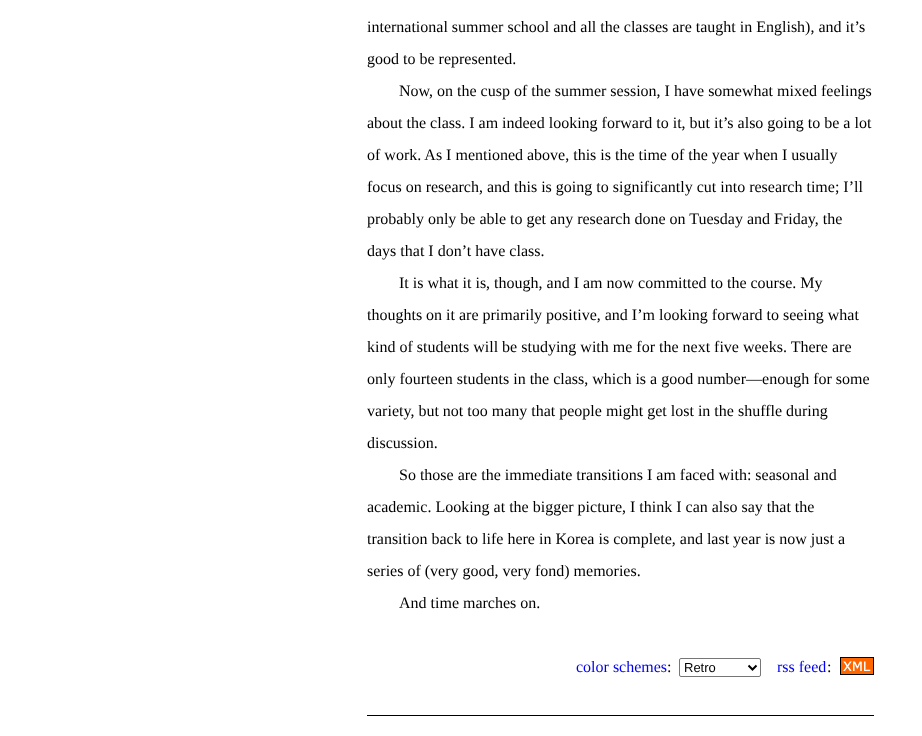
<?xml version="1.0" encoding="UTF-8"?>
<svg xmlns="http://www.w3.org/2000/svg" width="922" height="736">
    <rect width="100%" height="100%" fill="#FFFFFF"/>
    <text x="367" y="32" font-family="Liberation Serif" font-size="16" fill="#000000">international summer school and all the classes are taught in English), and it’s</text>
    <text x="367" y="64" font-family="Liberation Serif" font-size="16" fill="#000000">good to be represented.</text>
    <text x="399" y="96" font-family="Liberation Serif" font-size="16" fill="#000000">Now, on the cusp of the summer session, I have somewhat mixed feelings</text>
    <text x="367" y="128" font-family="Liberation Serif" font-size="16" fill="#000000">about the class. I am indeed looking forward to it, but it’s also going to be a lot</text>
    <text x="367" y="160" font-family="Liberation Serif" font-size="16" fill="#000000">of work. As I mentioned above, this is the time of the year when I usually</text>
    <text x="367" y="192" font-family="Liberation Serif" font-size="16" fill="#000000">focus on research, and this is going to significantly cut into research time; I’ll</text>
    <text x="367" y="224" font-family="Liberation Serif" font-size="16" fill="#000000">probably only be able to get any research done on Tuesday and Friday, the</text>
    <text x="367" y="256" font-family="Liberation Serif" font-size="16" fill="#000000">days that I don’t have class.</text>
    <text x="399" y="288" font-family="Liberation Serif" font-size="16" fill="#000000">It is what it is, though, and I am now committed to the course. My</text>
    <text x="367" y="320" font-family="Liberation Serif" font-size="16" fill="#000000">thoughts on it are primarily positive, and I’m looking forward to seeing what</text>
    <text x="367" y="352" font-family="Liberation Serif" font-size="16" fill="#000000">kind of students will be studying with me for the next five weeks. There are</text>
    <text x="367" y="384" font-family="Liberation Serif" font-size="16" fill="#000000">only fourteen students in the class, which is a good number—enough for some</text>
    <text x="367" y="416" font-family="Liberation Serif" font-size="16" fill="#000000">variety, but not too many that people might get lost in the shuffle during</text>
    <text x="367" y="448" font-family="Liberation Serif" font-size="16" fill="#000000">discussion.</text>
    <text x="399" y="480" font-family="Liberation Serif" font-size="16" fill="#000000">So those are the immediate transitions I am faced with: seasonal and</text>
    <text x="367" y="512" font-family="Liberation Serif" font-size="16" fill="#000000">academic. Looking at the bigger picture, I think I can also say that the</text>
    <text x="367" y="544" font-family="Liberation Serif" font-size="16" fill="#000000">transition back to life here in Korea is complete, and last year is now just a</text>
    <text x="367" y="576" font-family="Liberation Serif" font-size="16" fill="#000000">series of (very good, very fond) memories.</text>
    <text x="399" y="608" font-family="Liberation Serif" font-size="16" fill="#000000">And time marches on.</text>
    <rect x="840.5" y="657.5" width="33" height="17" fill="none" stroke="#000000"/>
    <text x="576" y="672" font-family="Liberation Serif" font-size="16" fill="#0000EE">color schemes</text>
    <text x="667" y="672" font-family="Liberation Serif" font-size="16" fill="#000000">:</text>
    <rect x="679.5" y="658.5" width="81" height="18" rx="1.5" fill="none" stroke="#767676"/>
    <path d="M 748.5 665.5 L 752.5 669.5 L 756.5 665.5" fill="none" stroke="#000000" stroke-width="2"/>
    <text x="684" y="672" font-family="Liberation Sans" font-size="13" fill="#000000">Retro</text>
    <text x="777" y="672" font-family="Liberation Serif" font-size="16" fill="#0000EE">rss feed</text>
    <text x="827" y="672" font-family="Liberation Serif" font-size="16" fill="#000000">:</text>
    <image x="841" y="658" width="32" height="16" href="img_01.png"/>
    <rect x="367" y="715" width="507" height="1" fill="#000000"/>
</svg>
